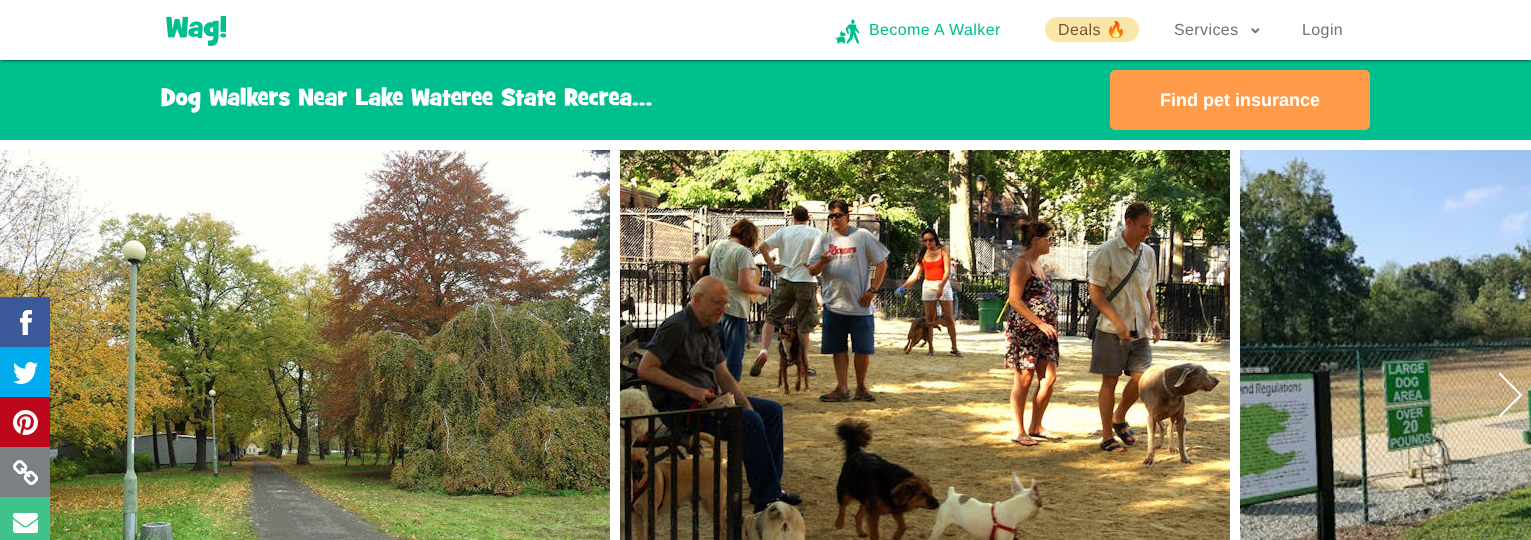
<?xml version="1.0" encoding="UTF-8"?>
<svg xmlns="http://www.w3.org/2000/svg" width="1531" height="540">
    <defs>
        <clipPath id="clip1"><rect x="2" y="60" width="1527" height="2"/></clipPath>
        <filter id="blur1" x="-50%" y="-200%" width="200%" height="500%"><feGaussianBlur stdDeviation="0.5"/></filter>
        <clipPath id="clip2"><rect x="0" y="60" width="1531" height="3"/></clipPath>
        <filter id="blur2" x="-50%" y="-200%" width="200%" height="500%"><feGaussianBlur stdDeviation="2.5"/></filter>
        <filter id="blur3" x="-50%" y="-200%" width="200%" height="500%"><feGaussianBlur stdDeviation="1"/></filter>
    </defs>
    <rect width="100%" height="100%" fill="#FFFFFF"/>
    <rect x="0" y="60" width="1531" height="80" fill="#00BF8F"/>
    <g clip-path="url(#clip1)">
        <rect x="2" y="5" width="1527" height="56" fill="#000000" fill-opacity="0.2" filter="url(#blur1)"/>
    </g>
    <g clip-path="url(#clip2)">
        <rect x="0" y="1" width="1531" height="60" fill="#000000" fill-opacity="0.12" filter="url(#blur2)"/>
        <rect x="0" y="2" width="1531" height="60" fill="#000000" fill-opacity="0.14" filter="url(#blur3)"/>
    </g>
    <image x="166" y="16" width="60" height="30" href="img_01.png"/>
    <image x="835" y="19" width="25" height="25" href="img_02.png"/>
    <text x="869" y="35" font-family="Liberation Sans" font-size="16" letter-spacing="0.4" fill="#00BF8F">Become A Walker</text>
    <rect x="1045" y="17" width="94" height="25" rx="12.5" fill="#FAE7A8"/>
    <text x="1058" y="35" font-family="Liberation Sans" font-size="16" letter-spacing="0.4" fill="#7B5533">Deals</text>
    <text x="1106" y="35" font-family="Noto Color Emoji" font-size="16" letter-spacing="0.4" fill="#7B5533">🔥</text>
    <text x="1174" y="35" font-family="Liberation Sans" font-size="16" letter-spacing="0.4" fill="#727272">Services</text>
    <image x="1251" y="28" width="9" height="6" href="img_03.png"/>
    <text x="1302" y="35" font-family="Liberation Sans" font-size="16" letter-spacing="0.4" fill="#727272">Login</text>
    <text x="161" y="105" font-family="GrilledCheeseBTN" font-size="24" fill="#FFFFFF">Dog Walkers Near Lake Wateree State Recrea...</text>
    <rect x="1110" y="70" width="260" height="60" rx="5" fill="#FF9B49"/>
    <text x="1160" y="106" font-family="Liberation Sans" font-size="18" font-weight="700" fill="#FFFFFF">Find pet insurance</text>
    <image x="0" y="150" width="610" height="390" href="img_04.png"/>
    <image x="620" y="150" width="610" height="390" href="img_05.png"/>
    <image x="1240" y="150" width="291" height="390" href="img_06.png"/>
    <path d="M 1498.5 374 L 1500 372.5 L 1522.5 395 L 1521 396.5 Z" fill="#FFFFFF"/>
    <path d="M 1498.5 416 L 1521 393.5 L 1522.5 395 L 1500 417.5 Z" fill="#FFFFFF"/>
    <rect x="0" y="297" width="50" height="50" fill="#3B5998"/>
    <image x="20" y="310" width="12" height="25" href="img_07.png"/>
    <rect x="0" y="347" width="50" height="50" fill="#00ACED"/>
    <image x="13" y="362" width="25" height="22" href="img_08.png"/>
    <rect x="0" y="397" width="50" height="50" fill="#BD081C"/>
    <image x="13" y="410" width="25" height="25" href="img_09.png"/>
    <rect x="0" y="447" width="50" height="50" fill="#7B8084"/>
    <image x="13" y="460" width="25" height="25" href="img_10.png"/>
    <rect x="0" y="497" width="50" height="43" fill="#40C38B"/>
    <image x="13" y="513" width="25" height="20" href="img_11.png"/>
</svg>
